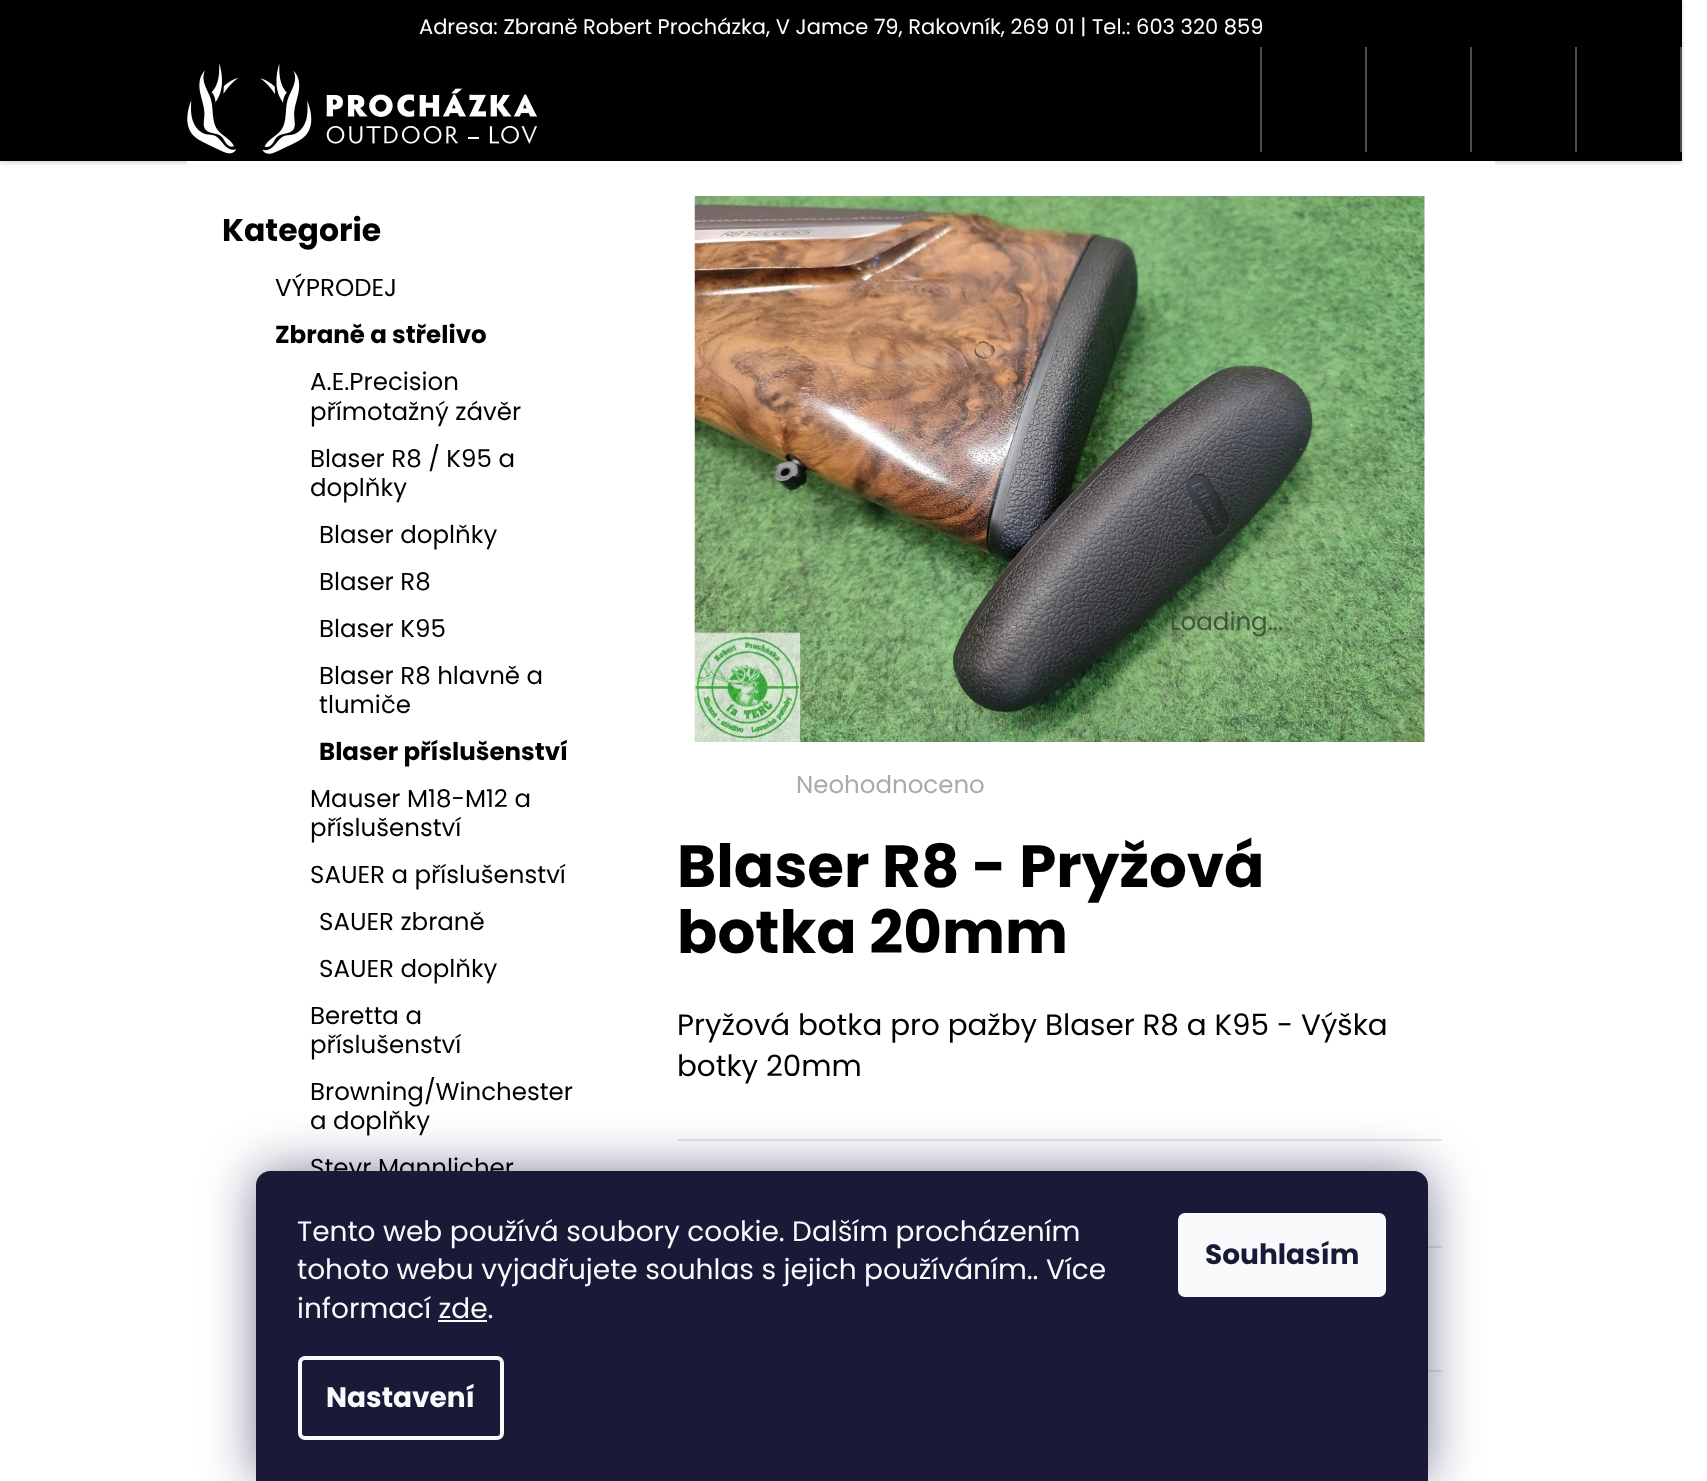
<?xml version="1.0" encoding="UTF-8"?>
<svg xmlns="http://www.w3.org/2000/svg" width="1707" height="1481">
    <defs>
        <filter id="blur1" x="-50%" y="-200%" width="200%" height="500%"><feGaussianBlur stdDeviation="2"/></filter>
        <filter id="blur2" x="-50%" y="-200%" width="200%" height="500%"><feGaussianBlur stdDeviation="26"/></filter>
    </defs>
    <rect width="100%" height="100%" fill="#FFFFFF"/>
    <rect x="0" y="2" width="1682" height="161" fill="#000000" fill-opacity="0.16" filter="url(#blur1)"/>
    <rect x="0" y="0" width="1682" height="161" fill="#000000"/>
    <text x="419" y="34" font-family="Poppins" font-size="21" fill="#FFFFFF">Adresa: Zbraně Robert Procházka, V Jamce 79, Rakovník, 269 01 | Tel.: 603 320 859</text>
    <image x="187" y="63" width="350" height="91" href="img_01.png"/>
    <rect x="1680" y="47" width="2" height="105" fill="#4D4D4D"/>
    <rect x="1260" y="47" width="2" height="105" fill="#4D4D4D"/>
    <rect x="1365" y="47" width="2" height="105" fill="#4D4D4D"/>
    <rect x="1470" y="47" width="2" height="105" fill="#4D4D4D"/>
    <rect x="1575" y="47" width="2" height="105" fill="#4D4D4D"/>
    <rect x="187" y="161" width="1308" height="5" fill="#FFFFFF"/>
    <text x="222" y="241" font-family="Poppins" font-size="31.5" font-weight="700" fill="#000000">Kategorie</text>
    <text x="275" y="296" font-family="Poppins" font-size="24.5" fill="#000000">VÝPRODEJ</text>
    <text x="275" y="343" font-family="Poppins" font-size="24.5" font-weight="700" fill="#000000">Zbraně a střelivo</text>
    <text font-family="Poppins" font-size="24.5" fill="#000000">
        <tspan x="310" y="390">A.E.Precision</tspan>
        <tspan x="310" y="420">přímotažný závěr</tspan>
        <tspan x="310" y="467">Blaser R8 / K95 a</tspan>
        <tspan x="310" y="496">doplňky</tspan>
    </text>
    <text font-family="Poppins" font-size="24.5" fill="#000000">
        <tspan x="319" y="543">Blaser doplňky</tspan>
        <tspan x="319" y="590">Blaser R8</tspan>
        <tspan x="319" y="637">Blaser K95</tspan>
        <tspan x="319" y="684">Blaser R8 hlavně a</tspan>
        <tspan x="319" y="713">tlumiče</tspan>
    </text>
    <text x="319" y="760" font-family="Poppins" font-size="24.5" font-weight="700" fill="#000000">Blaser příslušenství</text>
    <text font-family="Poppins" font-size="24.5" fill="#000000">
        <tspan x="310" y="807">Mauser M18-M12 a</tspan>
        <tspan x="310" y="836">příslušenství</tspan>
        <tspan x="310" y="883">SAUER a příslušenství</tspan>
    </text>
    <text font-family="Poppins" font-size="24.5" fill="#000000">
        <tspan x="319" y="930">SAUER zbraně</tspan>
        <tspan x="319" y="977">SAUER doplňky</tspan>
    </text>
    <text font-family="Poppins" font-size="24.5" fill="#000000">
        <tspan x="310" y="1024">Beretta a</tspan>
        <tspan x="310" y="1053">příslušenství</tspan>
        <tspan x="310" y="1100">Browning/Winchester</tspan>
        <tspan x="310" y="1129">a doplňky</tspan>
        <tspan x="310" y="1176">Steyr Mannlicher</tspan>
    </text>
    <image x="694" y="196" width="731" height="546" href="img_02.png"/>
    <text x="1170" y="630" font-family="Poppins" font-size="24.5" fill="#3F5438">Loading...</text>
    <text x="796" y="793" font-family="Poppins" font-size="24.5" fill="#AAAAAA">Neohodnoceno</text>
    <text font-family="Poppins" font-size="59.5" font-weight="700" fill="#000000">
        <tspan x="677" y="887">Blaser R8 - Pryžová</tspan>
        <tspan x="677" y="953">botka 20mm</tspan>
    </text>
    <text font-family="Poppins" font-size="29.4" fill="#000000">
        <tspan x="677" y="1035">Pryžová botka pro pažby Blaser R8 a K95 - Výška</tspan>
        <tspan x="677" y="1076">botky 20mm</tspan>
    </text>
    <rect x="677" y="1139" width="765" height="2" fill="#E7E7E7"/>
    <rect x="1428" y="1246" width="14" height="2" fill="#E7E7E7"/>
    <rect x="1428" y="1370" width="14" height="2" fill="#E7E7E7"/>
    <rect x="256" y="1171" width="1172" height="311" rx="14" fill="#1B1939" fill-opacity="0.5" filter="url(#blur2)"/>
    <path d="M 270 1171 H 1414 C 1421.5 1171 1428 1177.5 1428 1185 V 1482 H 256 V 1185 C 256 1177.5 262.5 1171 270 1171 Z" fill="#1A1937"/>
    <text font-family="Poppins" font-size="28" fill="#F8FAFB">
        <tspan x="297" y="1241">Tento web používá soubory cookie. Dalším procházením</tspan>
        <tspan x="297" y="1279">tohoto webu vyjadřujete souhlas s jejich používáním.. Více</tspan>
        <tspan x="297" y="1318">informací zde.</tspan>
    </text>
    <rect x="438" y="1320" width="49" height="2" fill="#F8FAFB"/>
    <rect x="300" y="1358" width="202" height="80" rx="5" fill="none" stroke="#F8FAFB" stroke-width="4"/>
    <text x="326" y="1407" font-family="Poppins" font-size="28" font-weight="700" fill="#F8FAFB">Nastavení</text>
    <rect x="1178" y="1213" width="208" height="84" rx="7" fill="#F8FAFB"/>
    <text x="1205" y="1264" font-family="Poppins" font-size="28" font-weight="700" fill="#1A1937">Souhlasím</text>
</svg>
